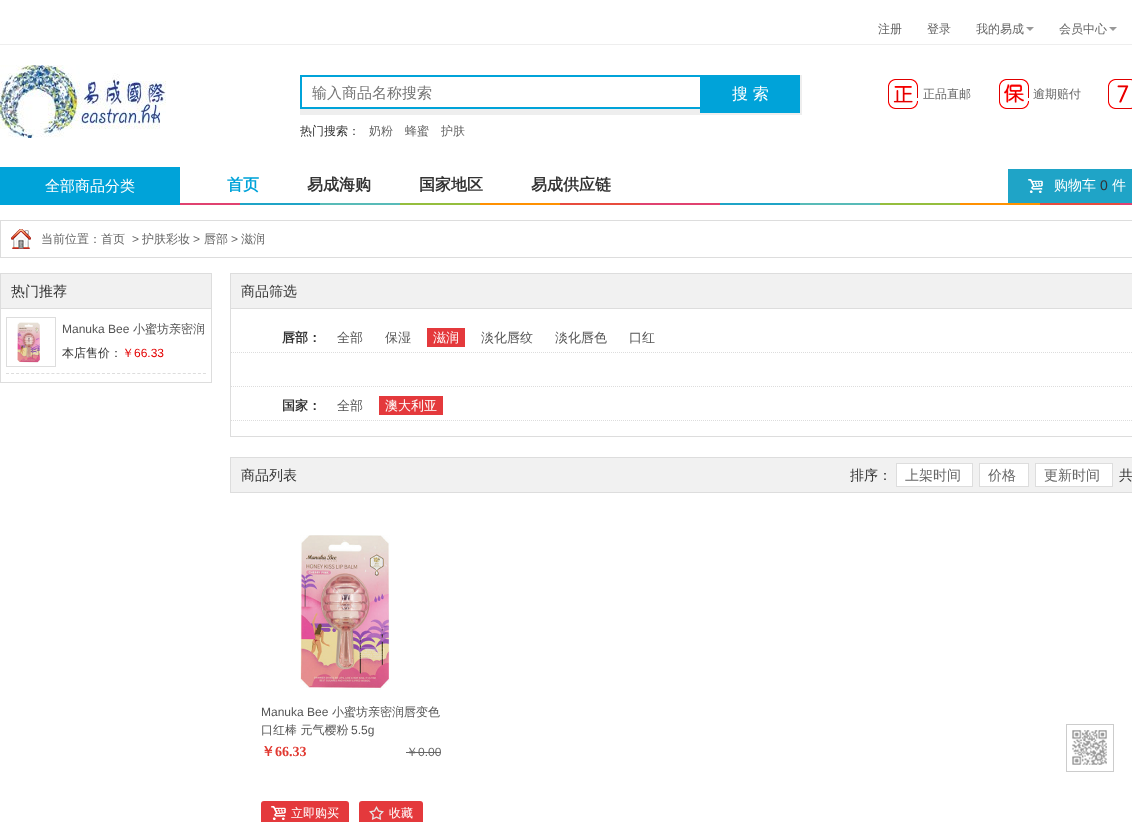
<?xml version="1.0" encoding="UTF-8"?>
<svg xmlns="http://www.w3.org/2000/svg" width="1132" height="822">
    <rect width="100%" height="100%" fill="#FFFFFF"/>
    <rect x="0" y="44" width="1132" height="1" fill="#EEEEEE"/>
    <text x="878" y="33" font-family="WenQuanYi Zen Hei" font-size="12" font-weight="500" fill="#666666">注册</text>
    <text x="927" y="33" font-family="WenQuanYi Zen Hei" font-size="12" font-weight="500" fill="#666666">登录</text>
    <text x="976" y="33" font-family="WenQuanYi Zen Hei" font-size="12" font-weight="500" fill="#666666">我的易成</text>
    <path d="M 1026 27 H 1034 L 1030 31 Z" fill="#999999"/>
    <text x="1059" y="33" font-family="WenQuanYi Zen Hei" font-size="12" font-weight="500" fill="#666666">会员中心</text>
    <path d="M 1109 27 H 1117 L 1113 31 Z" fill="#999999"/>
    <image x="180" y="203" width="952" height="2" href="img_01.png"/>
    <image x="0" y="65" width="166" height="73" href="img_02.png"/>
    <rect x="300" y="75" width="502" height="40" fill="#EEEEEE"/>
    <rect x="302" y="77" width="398" height="30" fill="#FFFFFF"/>
    <rect x="300" y="75" width="400" height="2" fill="#00A3D9"/>
    <rect x="300" y="107" width="400" height="2" fill="#00A3D9"/>
    <rect x="300" y="75" width="2" height="34" fill="#00A3D9"/>
    <text x="312" y="98" font-family="WenQuanYi Zen Hei" font-size="15" font-weight="500" fill="#757575">输入商品名称搜索</text>
    <rect x="700" y="75" width="100" height="38" fill="#00A3D9"/>
    <text x="732" y="99" font-family="WenQuanYi Zen Hei" font-size="16" font-weight="500" fill="#FFFFFF">搜 索</text>
    <image x="888" y="79" width="30" height="30" href="img_03.png"/>
    <text x="923" y="98" font-family="WenQuanYi Zen Hei" font-size="12" font-weight="500" fill="#666666">正品直邮</text>
    <image x="999" y="79" width="30" height="30" href="img_04.png"/>
    <text x="1033" y="98" font-family="WenQuanYi Zen Hei" font-size="12" font-weight="500" fill="#666666">逾期赔付</text>
    <image x="1108" y="79" width="24" height="30" href="img_05.png"/>
    <text x="300" y="135" font-family="WenQuanYi Zen Hei" font-size="12" font-weight="500" fill="#333333">热门搜索：</text>
    <text x="369" y="135" font-family="WenQuanYi Zen Hei" font-size="12" font-weight="500" fill="#666666">奶粉</text>
    <text x="405" y="135" font-family="WenQuanYi Zen Hei" font-size="12" font-weight="500" fill="#666666">蜂蜜</text>
    <text x="441" y="135" font-family="WenQuanYi Zen Hei" font-size="12" font-weight="500" fill="#666666">护肤</text>
    <rect x="0" y="167" width="180" height="38" fill="#00A3D9"/>
    <text x="45" y="191" font-family="WenQuanYi Zen Hei" font-size="15" font-weight="500" fill="#FFFFFF">全部商品分类</text>
    <text x="227" y="190" font-family="WenQuanYi Zen Hei" font-size="16" font-weight="700" fill="#00A3D9">首页</text>
    <text x="307" y="190" font-family="WenQuanYi Zen Hei" font-size="16" font-weight="700" fill="#333333">易成海购</text>
    <text x="419" y="190" font-family="WenQuanYi Zen Hei" font-size="16" font-weight="700" fill="#333333">国家地区</text>
    <text x="531" y="190" font-family="WenQuanYi Zen Hei" font-size="16" font-weight="700" fill="#333333">易成供应链</text>
    <rect x="1008" y="169" width="124" height="34" fill="#1FA4C7"/>
    <image x="1028" y="179" width="15" height="14" href="img_06.png"/>
    <text x="1054" y="190" font-family="WenQuanYi Zen Hei" font-size="14" font-weight="500" fill="#FFFFFF">购物车</text>
    <text x="1100" y="190" font-family="Liberation Sans" font-size="14" fill="#333333">0</text>
    <text x="1112" y="190" font-family="WenQuanYi Zen Hei" font-size="14" font-weight="500" fill="#FFFFFF">件</text>
    <image x="11" y="229" width="20" height="20" href="img_07.png"/>
    <rect x="0.5" y="220.5" width="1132" height="37" fill="none" stroke="#DDDDDD"/>
    <text x="41" y="243" font-family="WenQuanYi Zen Hei" font-size="12" font-weight="500" fill="#666666">当前位置：首页</text>
    <text x="132" y="243" font-family="Liberation Sans" font-size="12" fill="#666666">&gt;</text>
    <text x="142" y="243" font-family="WenQuanYi Zen Hei" font-size="12" font-weight="500" fill="#666666">护肤彩妆</text>
    <text x="193" y="243" font-family="Liberation Sans" font-size="12" fill="#666666">&gt;</text>
    <text x="204" y="243" font-family="WenQuanYi Zen Hei" font-size="12" font-weight="500" fill="#666666">唇部</text>
    <text x="231" y="243" font-family="Liberation Sans" font-size="12" fill="#666666">&gt;</text>
    <text x="241" y="243" font-family="WenQuanYi Zen Hei" font-size="12" font-weight="500" fill="#666666">滋润</text>
    <rect x="0.5" y="273.5" width="211" height="109" fill="none" stroke="#DDDDDD"/>
    <rect x="1" y="274" width="210" height="34" fill="#F1F1F1"/>
    <rect x="1" y="308" width="210" height="1" fill="#DDDDDD"/>
    <text x="11" y="296" font-family="WenQuanYi Zen Hei" font-size="14" font-weight="500" fill="#333333">热门推荐</text>
    <path d="M 6 373.5 H 206" fill="none" stroke="#DDDDDD" stroke-dasharray="3 2.05"/>
    <rect x="6.5" y="317.5" width="49" height="49" fill="none" stroke="#DDDDDD"/>
    <image x="17" y="322" width="23" height="41" href="img_08.png"/>
    <text x="62" y="333" font-family="Liberation Sans" font-size="12" fill="#555555">Manuka Bee</text>
    <text x="133" y="333" font-family="WenQuanYi Zen Hei" font-size="12" font-weight="500" fill="#555555">小蜜坊亲密润</text>
    <text x="62" y="357" font-family="WenQuanYi Zen Hei" font-size="12" font-weight="500" fill="#333333">本店售价：</text>
    <text x="122" y="357" font-family="WenQuanYi Zen Hei" font-size="12" font-weight="500" fill="#E30000">￥</text>
    <text x="134" y="357" font-family="Liberation Sans" font-size="12" fill="#E30000">66.33</text>
    <rect x="230.5" y="273.5" width="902" height="163" fill="none" stroke="#DDDDDD"/>
    <rect x="231" y="274" width="901" height="34" fill="#F1F1F1"/>
    <rect x="231" y="308" width="901" height="1" fill="#DDDDDD"/>
    <text x="241" y="296" font-family="WenQuanYi Zen Hei" font-size="14" font-weight="500" fill="#333333">商品筛选</text>
    <path d="M 231 352.5 H 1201" fill="none" stroke="#DDDDDD" stroke-dasharray="1 1"/>
    <text x="282" y="342" font-family="WenQuanYi Zen Hei" font-size="13" font-weight="700" fill="#333333">唇部：</text>
    <text x="337" y="342" font-family="WenQuanYi Zen Hei" font-size="13" font-weight="500" fill="#555555">全部</text>
    <text x="385" y="342" font-family="WenQuanYi Zen Hei" font-size="13" font-weight="500" fill="#555555">保湿</text>
    <rect x="427" y="328" width="38" height="19" fill="#E4393C"/>
    <text x="433" y="342" font-family="WenQuanYi Zen Hei" font-size="13" font-weight="500" fill="#FFFFFF">滋润</text>
    <text x="481" y="342" font-family="WenQuanYi Zen Hei" font-size="13" font-weight="500" fill="#555555">淡化唇纹</text>
    <text x="555" y="342" font-family="WenQuanYi Zen Hei" font-size="13" font-weight="500" fill="#555555">淡化唇色</text>
    <text x="629" y="342" font-family="WenQuanYi Zen Hei" font-size="13" font-weight="500" fill="#555555">口红</text>
    <path d="M 231 386.5 H 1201" fill="none" stroke="#DDDDDD" stroke-dasharray="1 1"/>
    <path d="M 231 420.5 H 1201" fill="none" stroke="#DDDDDD" stroke-dasharray="1 1"/>
    <text x="282" y="410" font-family="WenQuanYi Zen Hei" font-size="13" font-weight="700" fill="#333333">国家：</text>
    <text x="337" y="410" font-family="WenQuanYi Zen Hei" font-size="13" font-weight="500" fill="#555555">全部</text>
    <rect x="379" y="396" width="64" height="19" fill="#E4393C"/>
    <text x="385" y="410" font-family="WenQuanYi Zen Hei" font-size="13" font-weight="500" fill="#FFFFFF">澳大利亚</text>
    <rect x="230.5" y="457.5" width="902" height="35" fill="#F1F1F1" stroke="#DDDDDD"/>
    <text x="241" y="480" font-family="WenQuanYi Zen Hei" font-size="14" font-weight="500" fill="#333333">商品列表</text>
    <text x="850" y="480" font-family="WenQuanYi Zen Hei" font-size="14" font-weight="500" fill="#333333">排序：</text>
    <rect x="896.5" y="463.5" width="76" height="23" fill="#FFFFFF" stroke="#DDDDDD"/>
    <text x="905" y="480" font-family="WenQuanYi Zen Hei" font-size="14" font-weight="500" fill="#666666">上架时间</text>
    <rect x="979.5" y="463.5" width="49" height="23" fill="#FFFFFF" stroke="#DDDDDD"/>
    <text x="988" y="480" font-family="WenQuanYi Zen Hei" font-size="14" font-weight="500" fill="#666666">价格</text>
    <rect x="1035.5" y="463.5" width="77" height="23" fill="#FFFFFF" stroke="#DDDDDD"/>
    <text x="1044" y="480" font-family="WenQuanYi Zen Hei" font-size="14" font-weight="500" fill="#666666">更新时间</text>
    <text x="1119" y="480" font-family="WenQuanYi Zen Hei" font-size="14" font-weight="500" fill="#333333">共</text>
    <image x="300" y="535" width="90" height="155" href="img_09.png"/>
    <text x="261" y="716" font-family="Liberation Sans" font-size="12" fill="#555555">Manuka Bee</text>
    <text x="332" y="716" font-family="WenQuanYi Zen Hei" font-size="12" font-weight="500" fill="#555555">小蜜坊亲密润唇变色</text>
    <text x="261" y="734" font-family="WenQuanYi Zen Hei" font-size="12" font-weight="500" fill="#555555">口红棒 元气樱粉</text>
    <text x="351" y="734" font-family="Liberation Sans" font-size="12" fill="#555555">5.5g</text>
    <text x="261" y="756" font-family="WenQuanYi Zen Hei" font-size="14" font-weight="700" fill="#E13931">￥</text>
    <text x="275" y="756" font-family="Liberation Serif" font-size="14" font-weight="700" fill="#E13931">66.33</text>
    <text x="406" y="756" font-family="WenQuanYi Zen Hei" font-size="12" font-weight="500" fill="#666666">￥</text>
    <text x="418" y="756" font-family="Liberation Sans" font-size="12" fill="#666666">0.00</text>
    <rect x="406" y="752" width="35" height="1" fill="#666666"/>
    <rect x="261" y="801" width="88" height="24" rx="3" fill="#E4393C"/>
    <image x="271" y="806" width="15" height="14" href="img_10.png"/>
    <text x="291" y="817" font-family="WenQuanYi Zen Hei" font-size="12" font-weight="500" fill="#FFFFFF">立即购买</text>
    <rect x="359" y="801" width="64" height="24" rx="3" fill="#E4393C"/>
    <image x="369" y="806" width="15" height="14" href="img_11.png"/>
    <text x="389" y="817" font-family="WenQuanYi Zen Hei" font-size="12" font-weight="500" fill="#FFFFFF">收藏</text>
    <image x="1072" y="730" width="35" height="35" href="img_12.png"/>
    <rect x="1066.5" y="724.5" width="47" height="47" fill="none" stroke="#CCCCCC"/>
</svg>
